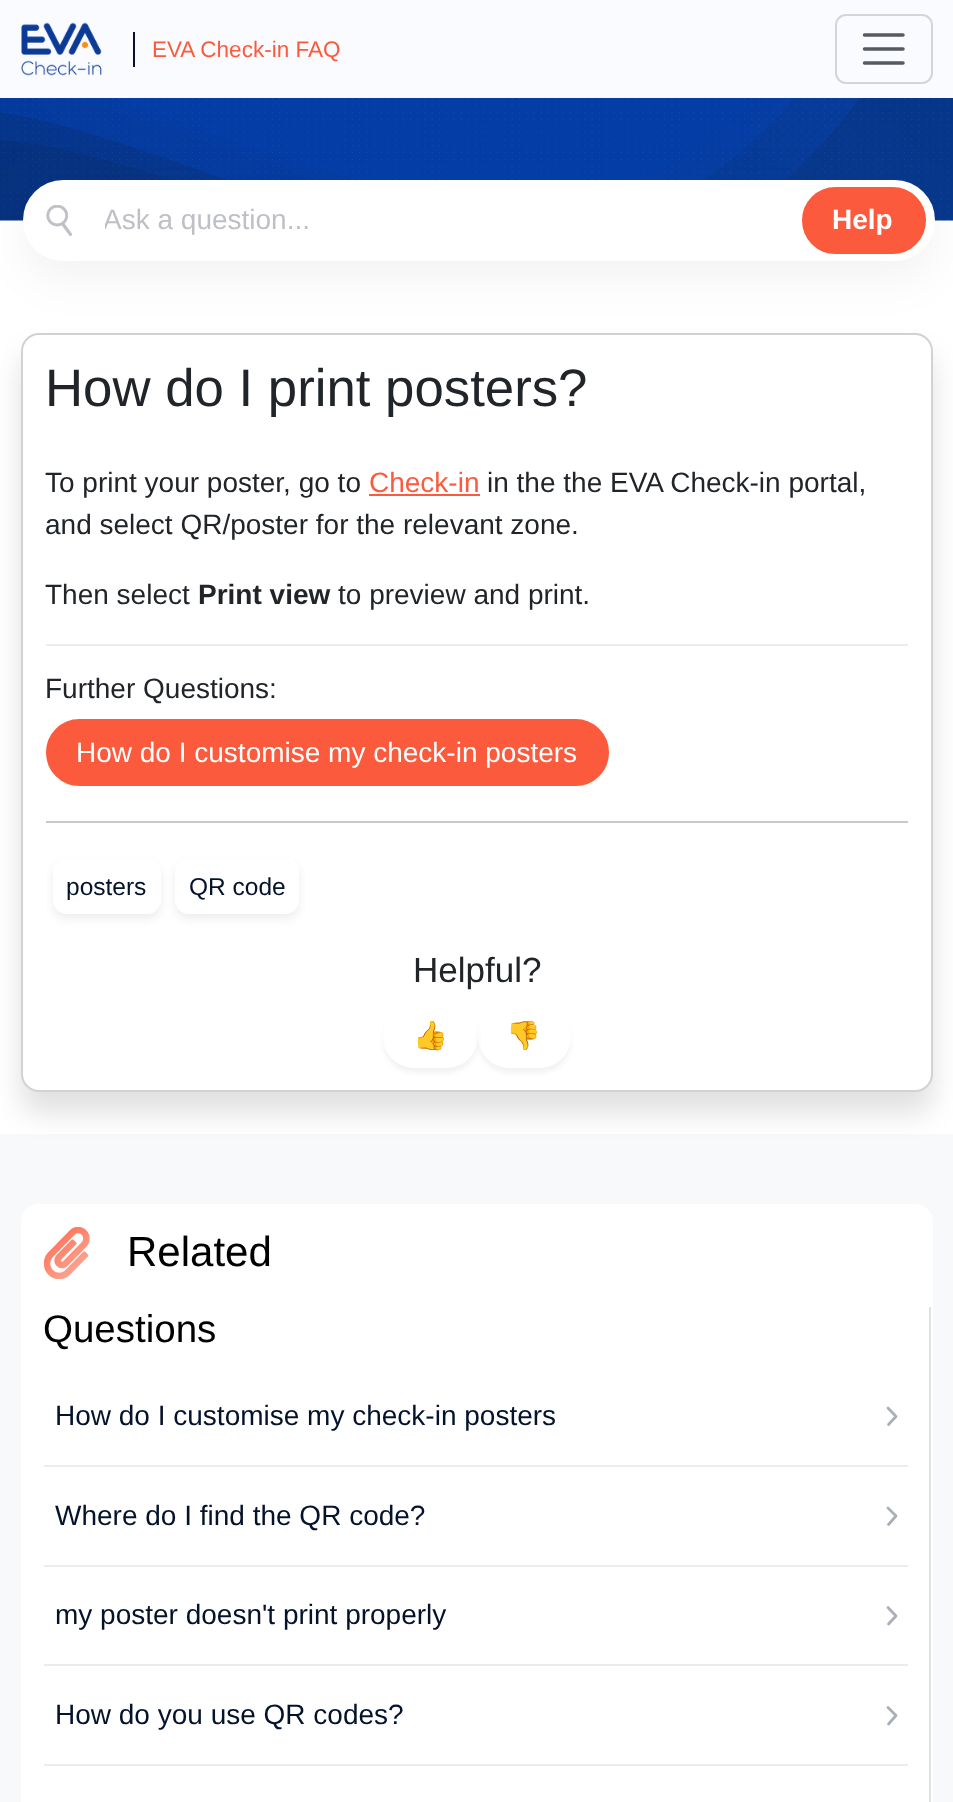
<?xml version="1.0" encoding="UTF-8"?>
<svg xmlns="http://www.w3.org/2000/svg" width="953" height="1802">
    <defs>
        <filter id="blur1" x="-50%" y="-200%" width="200%" height="500%"><feGaussianBlur stdDeviation="14"/></filter>
        <filter id="blur2" x="-50%" y="-200%" width="200%" height="500%"><feGaussianBlur stdDeviation="23"/></filter>
        <clipPath id="clip1"><rect x="105" y="205" width="651" height="31"/></clipPath>
        <filter id="blur3" x="-50%" y="-200%" width="200%" height="500%"><feGaussianBlur stdDeviation="5"/></filter>
        <clipPath id="clip2"><path d="M 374 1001 H 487 V 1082 H 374 Z M 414.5 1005 H 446.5 C 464 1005 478 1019 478 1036.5 C 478 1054 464 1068 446.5 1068 H 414.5 C 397 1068 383 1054 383 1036.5 C 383 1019 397 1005 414.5 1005 Z" clip-rule="evenodd"/></clipPath>
        <filter id="blur4" x="-50%" y="-200%" width="200%" height="500%"><feGaussianBlur stdDeviation="2.5"/></filter>
        <clipPath id="clip3"><path d="M 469 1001 H 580 V 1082 H 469 Z M 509.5 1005 H 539.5 C 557 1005 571 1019 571 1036.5 C 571 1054 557 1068 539.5 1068 H 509.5 C 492 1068 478 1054 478 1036.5 C 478 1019 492 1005 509.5 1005 Z" clip-rule="evenodd"/></clipPath>
    </defs>
    <rect width="100%" height="100%" fill="#F8F9FA"/>
    <rect x="0" y="0" width="953" height="98" fill="#F9FBFF"/>
    <image x="21" y="22" width="81" height="54" href="img_01.png"/>
    <rect x="133" y="32" width="2" height="35" fill="#04132B"/>
    <text x="152" y="57" font-family="Liberation Sans" font-size="22.5" fill="#FC5A3C">EVA Check-in FAQ</text>
    <rect x="836" y="15" width="96" height="68" rx="10" fill="none" stroke="#D4D5D9" stroke-width="2"/>
    <path d="M 864.5 35 H 903 M 864.5 49 H 903 M 864.5 63 H 903" fill="none" stroke="#575B5F" stroke-width="3.5" stroke-linecap="round"/>
    <image x="0" y="98" width="953" height="123" href="img_02.png"/>
    <rect x="0" y="221" width="953" height="913" fill="#FFFFFF"/>
    <rect x="21" y="354" width="912" height="759" rx="18" fill="#000000" fill-opacity="0.12" filter="url(#blur1)"/>
    <rect x="22" y="334" width="910" height="757" rx="17" fill="#FFFFFF" stroke="#D2D2D2" stroke-width="2"/>
    <rect x="23" y="198" width="912" height="80" rx="40" fill="#000000" fill-opacity="0.05" filter="url(#blur2)"/>
    <rect x="25" y="182" width="908" height="77" rx="38.5" fill="#FFFFFF" stroke="#FFFFFF" stroke-width="4"/>
    <image x="46" y="205" width="26" height="31" href="img_03.png"/>
    <g clip-path="url(#clip1)">
        <text x="103" y="229" font-family="Liberation Sans" font-size="28" fill="#BEC0C6">Ask a question...</text>
    </g>
    <rect x="803" y="188" width="122" height="65" rx="32.5" fill="#FC5A3C" stroke="#FC5A3C" stroke-width="2"/>
    <text x="832" y="229" font-family="Liberation Sans" font-size="28" font-weight="700" fill="#FFFFFF">Help</text>
    <text x="45" y="406" font-family="Liberation Sans" font-size="52.75" fill="#212529">How do I print posters?</text>
    <text x="45" y="492" font-family="Liberation Sans" font-size="28" fill="#212529">To print your poster, go to</text>
    <text x="369" y="492" font-family="Liberation Sans" font-size="28" fill="#FC5A3C">Check-in</text>
    <rect x="369" y="494" width="111" height="2" fill="#FC5A3C"/>
    <text x="487" y="492" font-family="Liberation Sans" font-size="28" fill="#212529">in the the EVA Check-in portal,</text>
    <text x="45" y="534" font-family="Liberation Sans" font-size="28" fill="#212529">and select QR/poster for the relevant zone.</text>
    <text x="45" y="604" font-family="Liberation Sans" font-size="28" fill="#212529">Then select</text>
    <text x="198" y="604" font-family="Liberation Sans" font-size="28" font-weight="700" fill="#212529">Print view</text>
    <text x="338" y="604" font-family="Liberation Sans" font-size="28" fill="#212529">to preview and print.</text>
    <rect x="46" y="644" width="862" height="2" fill="#EBECEE"/>
    <text x="45" y="698" font-family="Liberation Sans" font-size="28" fill="#212529">Further Questions:</text>
    <rect x="47" y="720" width="561" height="65" rx="32.5" fill="#FC5A3C" stroke="#FC5A3C" stroke-width="2"/>
    <text x="76" y="762" font-family="Liberation Sans" font-size="28" fill="#FFFFFF">How do I customise my check-in posters</text>
    <rect x="46" y="821" width="862" height="2" fill="#C8C9CA"/>
    <rect x="53" y="863" width="108" height="56" rx="14" fill="#000000" fill-opacity="0.07" filter="url(#blur3)"/>
    <rect x="53" y="858" width="108" height="56" rx="14" fill="#FFFFFF"/>
    <text x="66" y="895" font-family="Liberation Sans" font-size="24.5" fill="#04132B">posters</text>
    <rect x="175" y="863" width="124" height="56" rx="14" fill="#000000" fill-opacity="0.07" filter="url(#blur3)"/>
    <rect x="175" y="858" width="124" height="56" rx="14" fill="#FFFFFF"/>
    <text x="189" y="895" font-family="Liberation Sans" font-size="24.5" fill="#04132B">QR code</text>
    <text x="413" y="982" font-family="Liberation Sans" font-size="35" fill="#212529">Helpful?</text>
    <g clip-path="url(#clip2)">
        <rect x="383" y="1010" width="95" height="63" rx="31.5" fill="#000000" fill-opacity="0.05" filter="url(#blur4)"/>
    </g>
    <text x="413" y="1045" font-family="Noto Color Emoji" font-size="28" fill="#ED526B">👍</text>
    <g clip-path="url(#clip3)">
        <rect x="478" y="1010" width="93" height="63" rx="31.5" fill="#000000" fill-opacity="0.05" filter="url(#blur4)"/>
    </g>
    <text x="506" y="1045" font-family="Noto Color Emoji" font-size="28" fill="#ED526B">👎</text>
    <rect x="21" y="1204" width="912" height="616" rx="18" fill="#FFFFFF"/>
    <image x="44" y="1227" width="46" height="52" href="img_04.png"/>
    <text x="127" y="1266" font-family="Liberation Sans" font-size="42" fill="#000000">Related</text>
    <rect x="929" y="1307" width="2" height="495" fill="#DEE2E6"/>
    <text x="43" y="1342" font-family="Liberation Sans" font-size="38.5" fill="#000000">Questions</text>
    <rect x="44" y="1465" width="864" height="2" fill="#EBECEE"/>
    <text x="55" y="1425" font-family="Liberation Sans" font-size="28" fill="#04132B">How do I customise my check-in posters</text>
    <path d="M 888 1408 L 896 1416.5 L 888.5 1424.5" fill="none" stroke="#AAAEB6" stroke-width="2.7" stroke-linecap="round" stroke-linejoin="round"/>
    <rect x="44" y="1565" width="864" height="2" fill="#EBECEE"/>
    <text x="55" y="1525" font-family="Liberation Sans" font-size="28" fill="#04132B">Where do I find the QR code?</text>
    <path d="M 888 1508 L 896 1516 L 888.5 1524.5" fill="none" stroke="#AAAEB6" stroke-width="2.7" stroke-linecap="round" stroke-linejoin="round"/>
    <rect x="44" y="1664" width="864" height="2" fill="#EBECEE"/>
    <text x="55" y="1624" font-family="Liberation Sans" font-size="28" fill="#04132B">my poster doesn't print properly</text>
    <path d="M 888 1607.5 L 896 1616 L 888.5 1624" fill="none" stroke="#AAAEB6" stroke-width="2.7" stroke-linecap="round" stroke-linejoin="round"/>
    <rect x="44" y="1764" width="864" height="2" fill="#EBECEE"/>
    <text x="55" y="1724" font-family="Liberation Sans" font-size="28" fill="#04132B">How do you use QR codes?</text>
    <path d="M 888 1707.5 L 896 1715.5 L 888.5 1724" fill="none" stroke="#AAAEB6" stroke-width="2.7" stroke-linecap="round" stroke-linejoin="round"/>
</svg>
